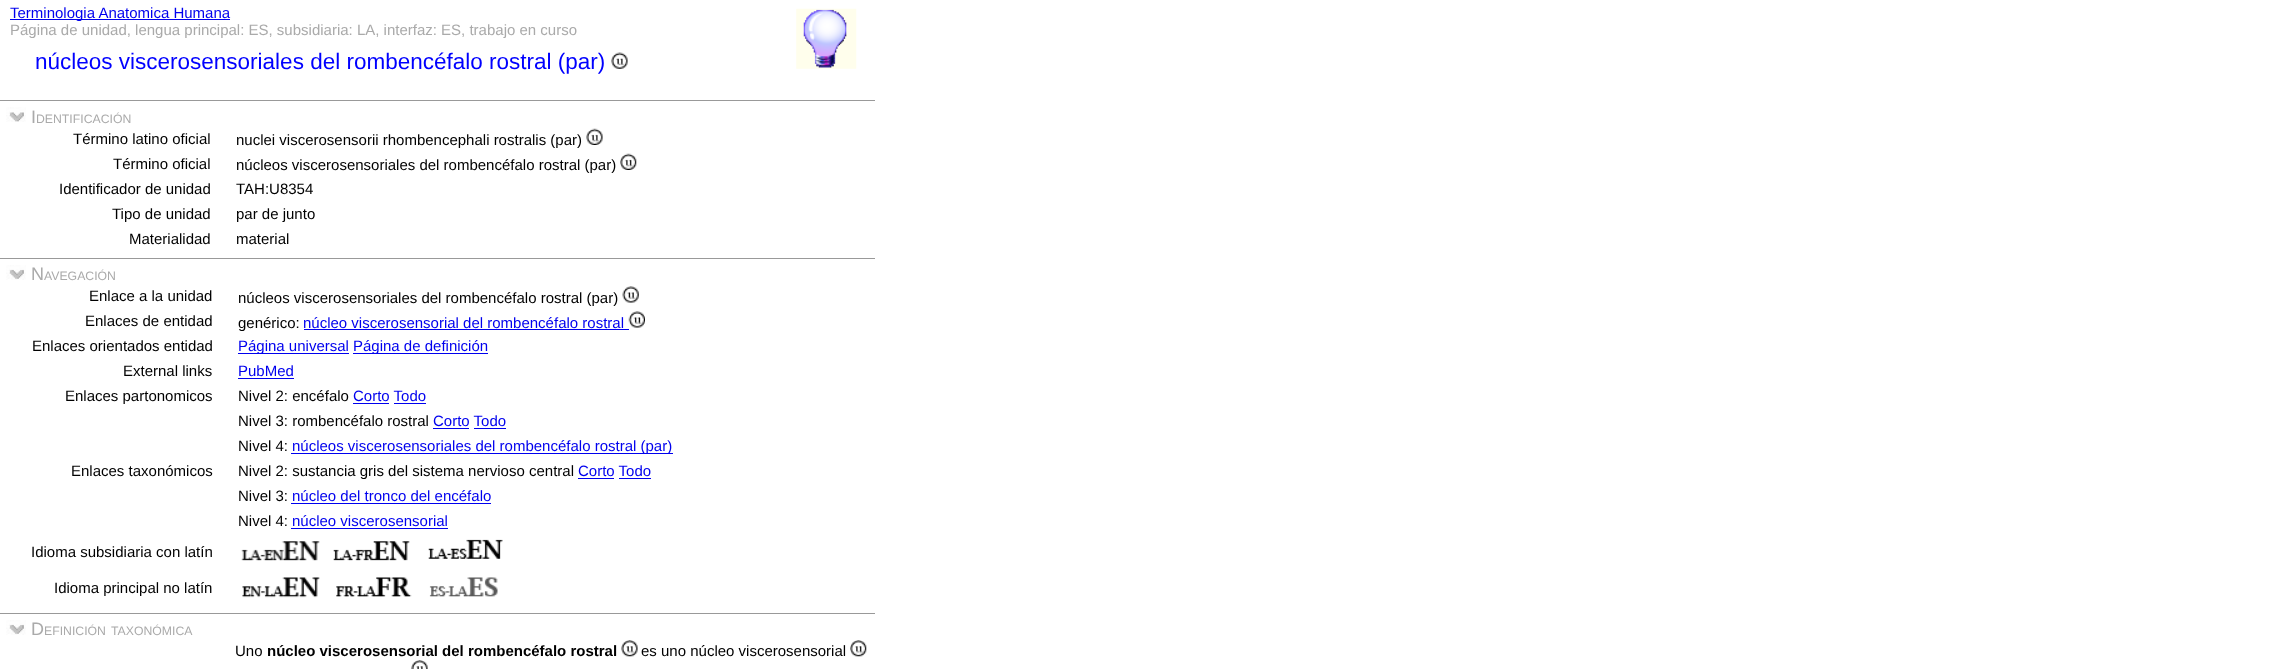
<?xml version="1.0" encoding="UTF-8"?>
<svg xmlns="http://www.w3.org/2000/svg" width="2284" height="669">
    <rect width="100%" height="100%" fill="#FFFFFF"/>
    <rect x="10" y="19" width="220" height="1" fill="#0000EE"/>
    <text x="10" y="18" font-family="Liberation Sans" font-size="15" fill="#0000EE">Terminologia Anatomica Humana</text>
    <text x="10" y="35" font-family="Liberation Sans" font-size="15" fill="#AAAAAA">Página de unidad, lengua principal: ES, subsidiaria: LA, interfaz: ES, trabajo en curso</text>
    <text x="35" y="69" font-family="Liberation Sans" font-size="22.5" fill="#0000FF">núcleos viscerosensoriales del rombencéfalo rostral (par)</text>
    <image x="611" y="52" width="17" height="17" href="img_01.png"/>
    <image x="796" y="8" width="61" height="61" href="img_02.png"/>
    <rect x="0" y="100" width="875" height="1" fill="#999999"/>
    <image x="6" y="107" width="20" height="15" href="img_03.png"/>
    <text x="31" y="123" font-family="Liberation Sans" font-size="18" fill="#AAAAAA">I</text>
    <text x="36" y="123" font-family="Liberation Sans" font-size="12.25" fill="#AAAAAA">DENTIFICACIÓN</text>
    <text x="73" y="144" font-family="Liberation Sans" font-size="15" fill="#000000">Término latino oficial</text>
    <text x="236" y="145" font-family="Liberation Sans" font-size="15" fill="#000000">nuclei viscerosensorii rhombencephali rostralis (par)</text>
    <image x="586" y="128" width="17" height="17" href="img_04.png"/>
    <text x="113" y="169" font-family="Liberation Sans" font-size="15" fill="#000000">Término oficial</text>
    <text x="236" y="170" font-family="Liberation Sans" font-size="15" fill="#000000">núcleos viscerosensoriales del rombencéfalo rostral (par)</text>
    <image x="620" y="153" width="17" height="17" href="img_05.png"/>
    <text x="59" y="194" font-family="Liberation Sans" font-size="15" fill="#000000">Identificador de unidad</text>
    <text x="236" y="194" font-family="Liberation Sans" font-size="15" fill="#000000">TAH:U8354</text>
    <text x="112" y="219" font-family="Liberation Sans" font-size="15" fill="#000000">Tipo de unidad</text>
    <text x="236" y="219" font-family="Liberation Sans" font-size="15" fill="#000000">par de junto</text>
    <text x="129" y="244" font-family="Liberation Sans" font-size="15" fill="#000000">Materialidad</text>
    <text x="236" y="244" font-family="Liberation Sans" font-size="15" fill="#000000">material</text>
    <rect x="0" y="258" width="875" height="1" fill="#999999"/>
    <image x="6" y="265" width="20" height="15" href="img_06.png"/>
    <text x="31" y="280" font-family="Liberation Sans" font-size="18" fill="#AAAAAA">N</text>
    <text x="44" y="280" font-family="Liberation Sans" font-size="12.25" fill="#AAAAAA">AVEGACIÓN</text>
    <text x="89" y="301" font-family="Liberation Sans" font-size="15" fill="#000000">Enlace a la unidad</text>
    <text x="238" y="303" font-family="Liberation Sans" font-size="15" fill="#000000">núcleos viscerosensoriales del rombencéfalo rostral (par)</text>
    <image x="622" y="286" width="17" height="17" href="img_07.png"/>
    <text x="85" y="326" font-family="Liberation Sans" font-size="15" fill="#000000">Enlaces de entidad</text>
    <text x="238" y="328" font-family="Liberation Sans" font-size="15" fill="#000000">genérico:</text>
    <text x="303" y="328" font-family="Liberation Sans" font-size="15" fill="#0000EE">núcleo viscerosensorial del rombencéfalo rostral</text>
    <rect x="304" y="329" width="325" height="1" fill="#0000EE"/>
    <image x="628" y="311" width="17" height="17" href="img_08.png"/>
    <text x="32" y="351" font-family="Liberation Sans" font-size="15" fill="#000000">Enlaces orientados entidad</text>
    <rect x="238" y="353" width="111" height="1" fill="#0000EE"/>
    <text x="238" y="351" font-family="Liberation Sans" font-size="15" fill="#0000EE">Página universal</text>
    <rect x="353" y="353" width="135" height="1" fill="#0000EE"/>
    <text x="353" y="351" font-family="Liberation Sans" font-size="15" fill="#0000EE">Página de definición</text>
    <text x="123" y="376" font-family="Liberation Sans" font-size="15" fill="#000000">External links</text>
    <text x="238" y="376" font-family="Liberation Sans" font-size="15" fill="#0000EE">PubMed</text>
    <rect x="238" y="378" width="56" height="1" fill="#0000EE"/>
    <text x="65" y="401" font-family="Liberation Sans" font-size="15" fill="#000000">Enlaces partonomicos</text>
    <text x="238" y="401" font-family="Liberation Sans" font-size="15" fill="#000000">Nivel 2: encéfalo</text>
    <text x="353" y="401" font-family="Liberation Sans" font-size="15" fill="#0000EE">Corto Todo</text>
    <rect x="353" y="403" width="36" height="1" fill="#0000EE"/>
    <rect x="394" y="403" width="32" height="1" fill="#0000EE"/>
    <text x="238" y="426" font-family="Liberation Sans" font-size="15" fill="#000000">Nivel 3: rombencéfalo rostral</text>
    <text x="433" y="426" font-family="Liberation Sans" font-size="15" fill="#0000EE">Corto Todo</text>
    <rect x="433" y="428" width="36" height="1" fill="#0000EE"/>
    <rect x="474" y="428" width="32" height="1" fill="#0000EE"/>
    <text x="238" y="451" font-family="Liberation Sans" font-size="15" fill="#000000">Nivel 4:</text>
    <rect x="291" y="453" width="382" height="1" fill="#0000EE"/>
    <text x="292" y="451" font-family="Liberation Sans" font-size="15" fill="#0000EE">núcleos viscerosensoriales del rombencéfalo rostral (par)</text>
    <text x="71" y="476" font-family="Liberation Sans" font-size="15" fill="#000000">Enlaces taxonómicos</text>
    <text x="238" y="476" font-family="Liberation Sans" font-size="15" fill="#000000">Nivel 2: sustancia gris del sistema nervioso central</text>
    <text x="578" y="476" font-family="Liberation Sans" font-size="15" fill="#0000EE">Corto Todo</text>
    <rect x="578" y="478" width="36" height="1" fill="#0000EE"/>
    <rect x="619" y="478" width="32" height="1" fill="#0000EE"/>
    <text x="238" y="501" font-family="Liberation Sans" font-size="15" fill="#000000">Nivel 3:</text>
    <text x="292" y="501" font-family="Liberation Sans" font-size="15" fill="#0000EE">núcleo del tronco del encéfalo</text>
    <rect x="291" y="503" width="200" height="1" fill="#0000EE"/>
    <text x="238" y="526" font-family="Liberation Sans" font-size="15" fill="#000000">Nivel 4:</text>
    <text x="292" y="526" font-family="Liberation Sans" font-size="15" fill="#0000EE">núcleo viscerosensorial</text>
    <rect x="291" y="528" width="157" height="1" fill="#0000EE"/>
    <text x="31" y="557" font-family="Liberation Sans" font-size="15" fill="#000000">Idioma subsidiaria con latín</text>
    <image x="241" y="541" width="79" height="20" href="img_09.png"/>
    <image x="333" y="541" width="77" height="20" href="img_10.png"/>
    <image x="428" y="539" width="75" height="20" href="img_11.png"/>
    <text x="54" y="593" font-family="Liberation Sans" font-size="15" fill="#000000">Idioma principal no latín</text>
    <image x="242" y="577" width="78" height="21" href="img_12.png"/>
    <image x="336" y="577" width="76" height="20" href="img_13.png"/>
    <image x="429" y="577" width="69" height="20" href="img_14.png"/>
    <rect x="0" y="613" width="875" height="1" fill="#999999"/>
    <image x="6" y="620" width="20" height="15" href="img_06.png"/>
    <text x="31" y="635" font-family="Liberation Sans" font-size="18" fill="#AAAAAA">D</text>
    <text x="44" y="635" font-family="Liberation Sans" font-size="12.25" fill="#AAAAAA">EFINICIÓN</text>
    <text x="111" y="635" font-family="Liberation Sans" font-size="12.25" fill="#AAAAAA">TAXONÓMICA</text>
    <text x="235" y="656" font-family="Liberation Sans" font-size="15" fill="#000000">Uno</text>
    <text x="267" y="656" font-family="Liberation Sans" font-size="15" font-weight="700" fill="#000000">núcleo viscerosensorial del rombencéfalo rostral</text>
    <image x="621" y="640" width="17" height="17" href="img_15.png"/>
    <text x="641" y="656" font-family="Liberation Sans" font-size="15" fill="#000000">es uno núcleo viscerosensorial</text>
    <image x="850" y="640" width="17" height="17" href="img_16.png"/>
    <image x="411" y="660" width="17" height="9" href="img_17.png"/>
</svg>
